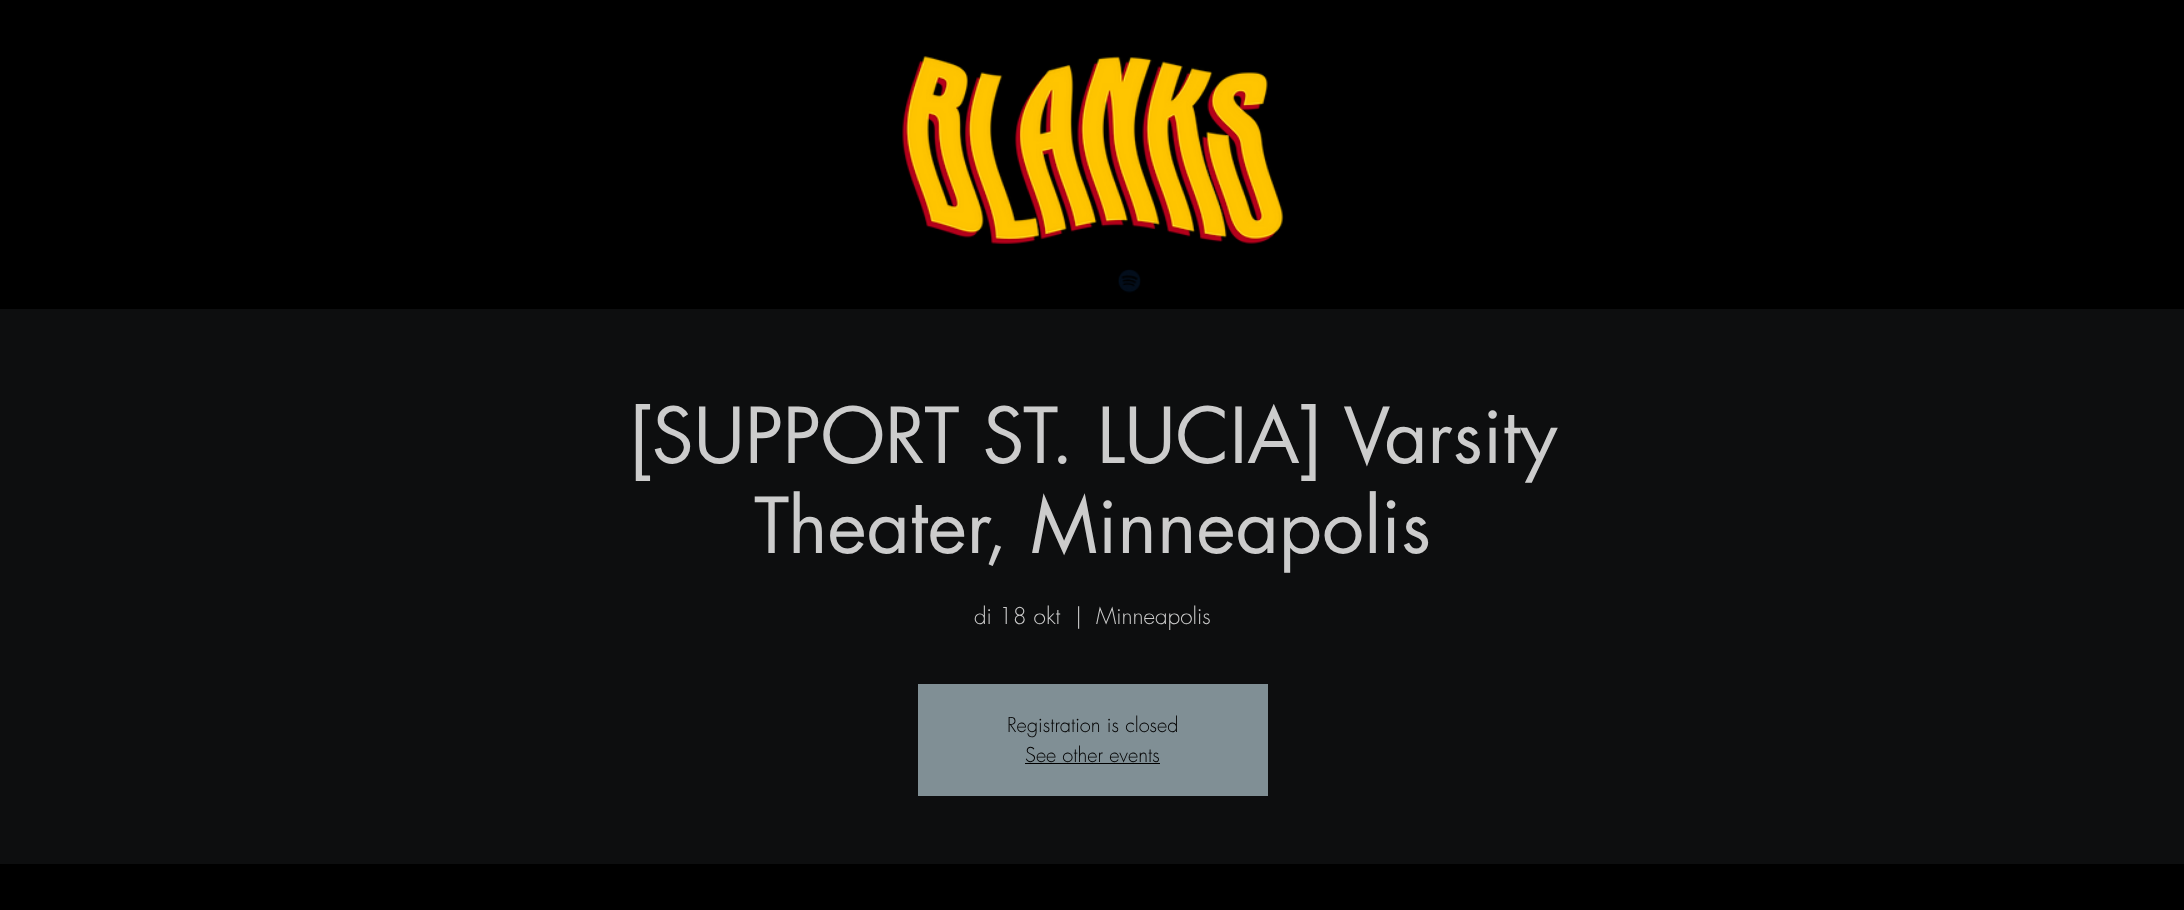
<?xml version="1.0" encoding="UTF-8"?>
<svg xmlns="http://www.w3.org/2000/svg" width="2184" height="910">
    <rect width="100%" height="100%" fill="#000000"/>
    <image x="902" y="56" width="382" height="188" href="img_01.png"/>
    <image x="1118" y="269" width="23" height="24" href="img_02.png"/>
    <rect x="0" y="309" width="2184" height="555" fill="#0D0E0F"/>
    <text x="628" y="463" font-family="futura" font-size="75" fill="#CCCCCC">[SUPPORT ST. LUCIA] Varsity</text>
    <text x="754" y="553" font-family="futura" font-size="75" fill="#CCCCCC">Theater, Minneapolis</text>
    <text x="974" y="624" font-family="futura" font-size="22.5" font-weight="300" fill="#CCCCCC">di 18 okt</text>
    <text x="1075" y="624" font-family="futura" font-size="22.5" font-weight="300" fill="#CCCCCC">|</text>
    <text x="1096" y="624" font-family="futura" font-size="22.5" font-weight="300" fill="#CCCCCC">Minneapolis</text>
    <rect x="918" y="684" width="350" height="112" fill="#808F95"/>
    <text x="1007" y="732" font-family="futura" font-size="20" font-weight="300" fill="#000000">Registration is closed</text>
    <text x="1025" y="762" font-family="futura" font-size="20" font-weight="300" fill="#000000">See other events</text>
    <rect x="1025" y="763" width="135" height="1" fill="#000000"/>
</svg>
